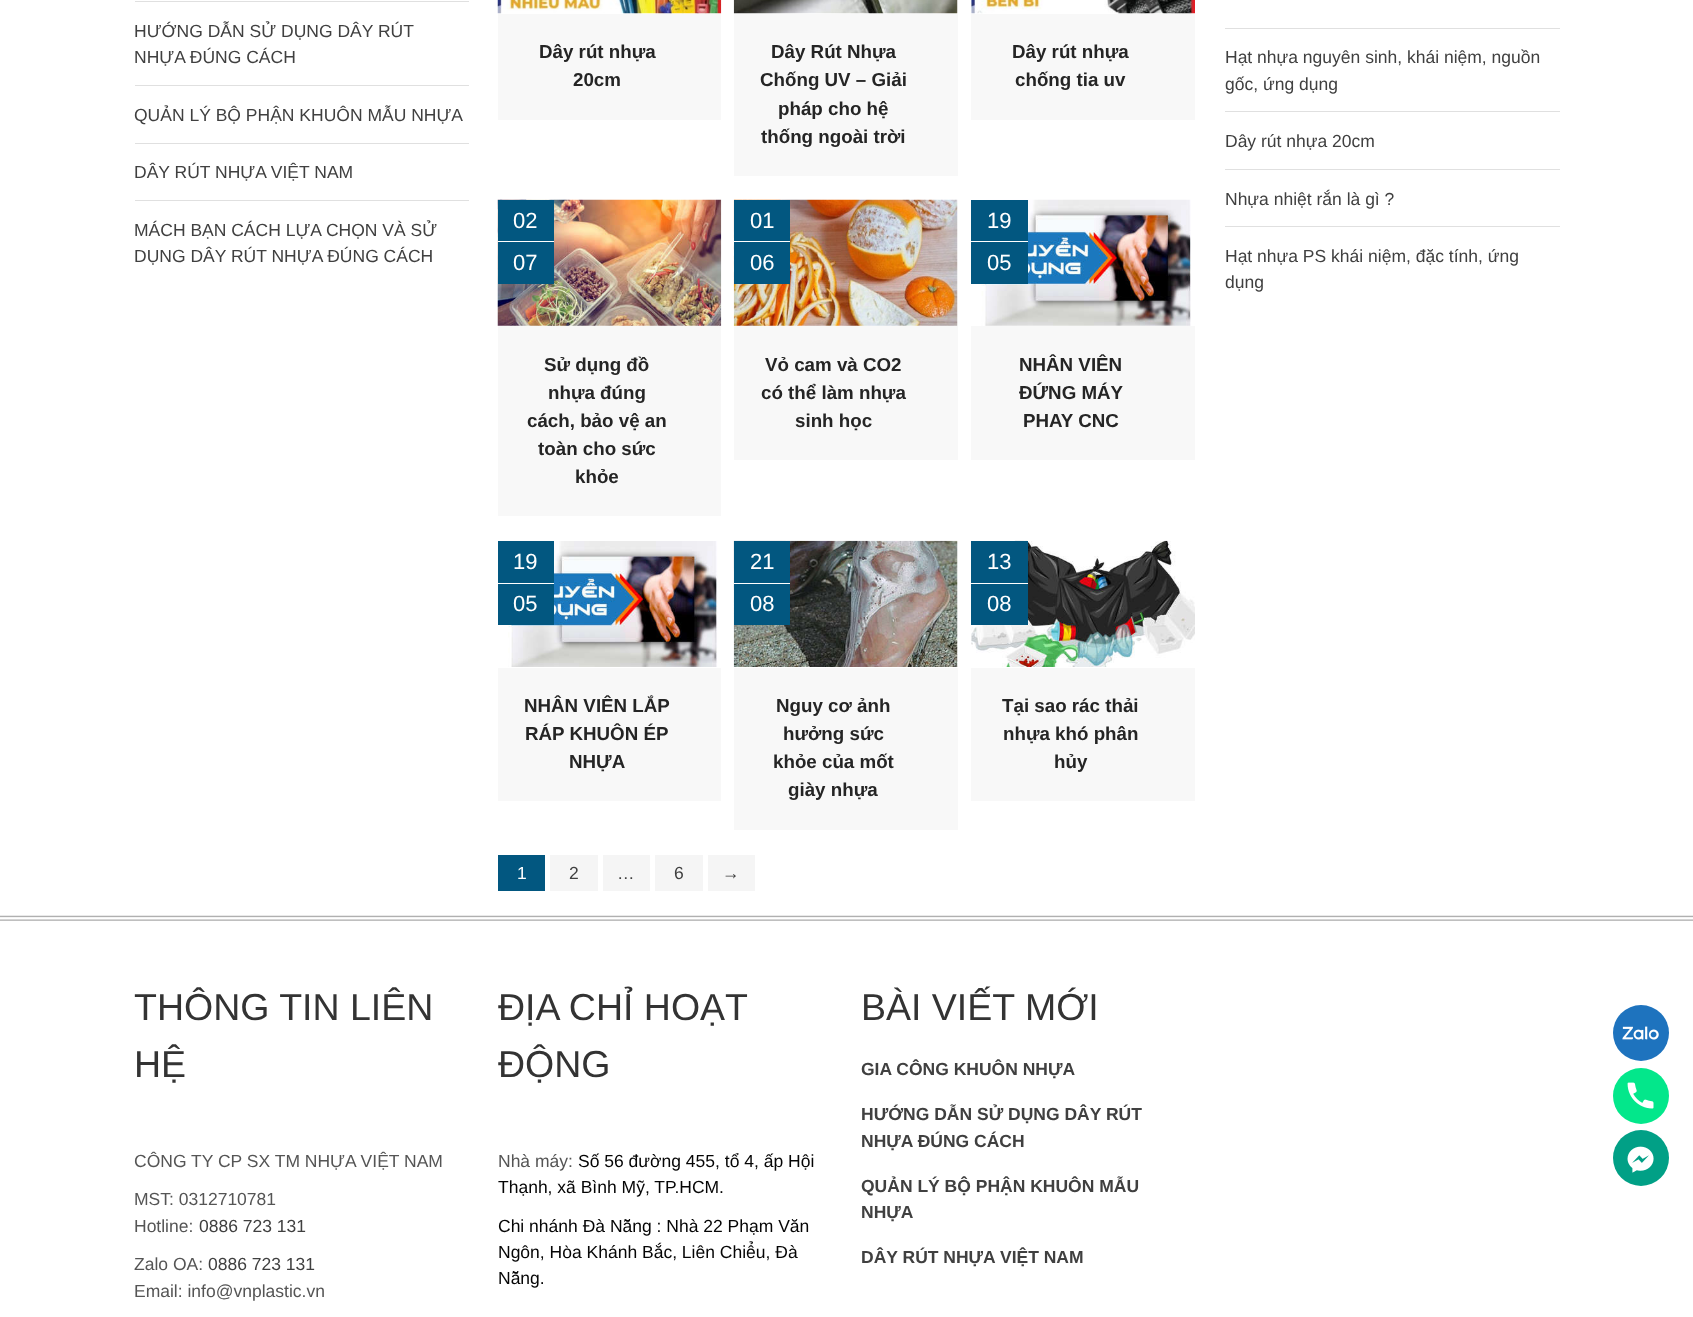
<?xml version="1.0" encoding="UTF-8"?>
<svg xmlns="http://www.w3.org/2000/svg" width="1693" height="1317">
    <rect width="100%" height="100%" fill="#FFFFFF"/>
    <rect x="135" y="1" width="334" height="1" fill="#E0E0E0"/>
    <rect x="135" y="85" width="334" height="1" fill="#E0E0E0"/>
    <text font-family="Liberation Sans" font-size="17.5" fill="#404040">
        <tspan x="134" y="37">HƯỚNG DẪN SỬ DỤNG DÂY RÚT</tspan>
        <tspan x="134" y="63">NHỰA ĐÚNG CÁCH</tspan>
    </text>
    <rect x="135" y="143" width="334" height="1" fill="#E0E0E0"/>
    <text x="134" y="121" font-family="Liberation Sans" font-size="17.5" fill="#404040">QUẢN LÝ BỘ PHẬN KHUÔN MẪU NHỰA</text>
    <rect x="135" y="200" width="334" height="1" fill="#E0E0E0"/>
    <text x="134" y="178" font-family="Liberation Sans" font-size="17.5" fill="#404040">DÂY RÚT NHỰA VIỆT NAM</text>
    <text font-family="Liberation Sans" font-size="17.5" fill="#404040">
        <tspan x="134" y="236">MÁCH BẠN CÁCH LỰA CHỌN VÀ SỬ</tspan>
        <tspan x="134" y="262">DỤNG DÂY RÚT NHỰA ĐÚNG CÁCH</tspan>
    </text>
    <image x="497" y="0" width="225" height="14" href="img_01.png"/>
    <rect x="498" y="14" width="223" height="106" fill="#F8F8F8"/>
    <text x="539" y="58" font-family="Liberation Sans" font-size="18.75" font-weight="700" fill="#252525">Dây rút nhựa</text>
    <text x="573" y="86" font-family="Liberation Sans" font-size="18.75" font-weight="700" fill="#252525">20cm</text>
    <image x="733" y="0" width="225" height="14" href="img_02.png"/>
    <rect x="734" y="14" width="224" height="162" fill="#F8F8F8"/>
    <text x="771" y="58" font-family="Liberation Sans" font-size="18.75" font-weight="700" fill="#252525">Dây Rút Nhựa</text>
    <text x="760" y="86" font-family="Liberation Sans" font-size="18.75" font-weight="700" fill="#252525">Chống UV – Giải</text>
    <text x="778" y="115" font-family="Liberation Sans" font-size="18.75" font-weight="700" fill="#252525">pháp cho hệ</text>
    <text x="761" y="143" font-family="Liberation Sans" font-size="18.75" font-weight="700" fill="#252525">thống ngoài trời</text>
    <image x="971" y="0" width="224" height="14" href="img_03.png"/>
    <rect x="971" y="14" width="224" height="106" fill="#F8F8F8"/>
    <text x="1012" y="58" font-family="Liberation Sans" font-size="18.75" font-weight="700" fill="#252525">Dây rút nhựa</text>
    <text x="1015" y="86" font-family="Liberation Sans" font-size="18.75" font-weight="700" fill="#252525">chống tia uv</text>
    <image x="497" y="199" width="225" height="127" href="img_04.png"/>
    <rect x="498" y="326" width="223" height="190" fill="#F8F8F8"/>
    <rect x="498" y="200" width="56" height="84" fill="#025780"/>
    <rect x="498" y="241" width="56" height="1" fill="#FFFFFF"/>
    <text font-family="Liberation Sans" font-size="22" fill="#FFFFFF">
        <tspan x="513" y="228">02</tspan>
        <tspan x="513" y="270">07</tspan>
    </text>
    <text x="544" y="371" font-family="Liberation Sans" font-size="18.75" font-weight="700" fill="#252525">Sử dụng đồ</text>
    <text x="548" y="399" font-family="Liberation Sans" font-size="18.75" font-weight="700" fill="#252525">nhựa đúng</text>
    <text x="527" y="427" font-family="Liberation Sans" font-size="18.75" font-weight="700" fill="#252525">cách, bảo vệ an</text>
    <text x="538" y="455" font-family="Liberation Sans" font-size="18.75" font-weight="700" fill="#252525">toàn cho sức</text>
    <text x="575" y="483" font-family="Liberation Sans" font-size="18.75" font-weight="700" fill="#252525">khỏe</text>
    <image x="733" y="199" width="225" height="127" href="img_05.png"/>
    <rect x="734" y="326" width="224" height="134" fill="#F8F8F8"/>
    <rect x="734" y="200" width="56" height="84" fill="#025780"/>
    <rect x="734" y="241" width="56" height="1" fill="#FFFFFF"/>
    <text font-family="Liberation Sans" font-size="22" fill="#FFFFFF">
        <tspan x="750" y="228">01</tspan>
        <tspan x="750" y="270">06</tspan>
    </text>
    <text x="765" y="371" font-family="Liberation Sans" font-size="18.75" font-weight="700" fill="#252525">Vỏ cam và CO2</text>
    <text x="761" y="399" font-family="Liberation Sans" font-size="18.75" font-weight="700" fill="#252525">có thể làm nhựa</text>
    <text x="795" y="427" font-family="Liberation Sans" font-size="18.75" font-weight="700" fill="#252525">sinh học</text>
    <image x="981" y="199" width="210" height="127" href="img_06.png"/>
    <rect x="971" y="326" width="224" height="134" fill="#F8F8F8"/>
    <rect x="971" y="200" width="57" height="84" fill="#025780"/>
    <rect x="971" y="241" width="57" height="1" fill="#FFFFFF"/>
    <text font-family="Liberation Sans" font-size="22" fill="#FFFFFF">
        <tspan x="987" y="228">19</tspan>
        <tspan x="987" y="270">05</tspan>
    </text>
    <text font-family="Liberation Sans" font-size="18.75" font-weight="700" fill="#252525">
        <tspan x="1019" y="371">NHÂN VIÊN</tspan>
        <tspan x="1019" y="399">ĐỨNG MÁY</tspan>
    </text>
    <text x="1023" y="427" font-family="Liberation Sans" font-size="18.75" font-weight="700" fill="#252525">PHAY CNC</text>
    <image x="508" y="541" width="210" height="126" href="img_07.png"/>
    <rect x="498" y="668" width="223" height="133" fill="#F8F8F8"/>
    <rect x="498" y="541" width="56" height="42" fill="#025780"/>
    <rect x="509" y="583" width="45" height="1" fill="#FFFFFF"/>
    <text x="513" y="569" font-family="Liberation Sans" font-size="22" fill="#FFFFFF">19</text>
    <rect x="498" y="584" width="56" height="41" fill="#025780"/>
    <text x="513" y="611" font-family="Liberation Sans" font-size="22" fill="#FFFFFF">05</text>
    <text x="524" y="712" font-family="Liberation Sans" font-size="18.75" font-weight="700" fill="#252525">NHÂN VIÊN LẮP</text>
    <text x="525" y="740" font-family="Liberation Sans" font-size="18.75" font-weight="700" fill="#252525">RÁP KHUÔN ÉP</text>
    <text x="569" y="768" font-family="Liberation Sans" font-size="18.75" font-weight="700" fill="#252525">NHỰA</text>
    <image x="733" y="540" width="225" height="127" href="img_08.png"/>
    <rect x="734" y="668" width="224" height="162" fill="#F8F8F8"/>
    <rect x="734" y="541" width="56" height="42" fill="#025780"/>
    <rect x="734" y="583" width="56" height="1" fill="#FFFFFF"/>
    <text x="750" y="569" font-family="Liberation Sans" font-size="22" fill="#FFFFFF">21</text>
    <rect x="734" y="584" width="56" height="41" fill="#025780"/>
    <text x="750" y="611" font-family="Liberation Sans" font-size="22" fill="#FFFFFF">08</text>
    <text x="776" y="712" font-family="Liberation Sans" font-size="18.75" font-weight="700" fill="#252525">Nguy cơ ảnh</text>
    <text x="783" y="740" font-family="Liberation Sans" font-size="18.75" font-weight="700" fill="#252525">hưởng sức</text>
    <text x="773" y="768" font-family="Liberation Sans" font-size="18.75" font-weight="700" fill="#252525">khỏe của mốt</text>
    <text x="788" y="796" font-family="Liberation Sans" font-size="18.75" font-weight="700" fill="#252525">giày nhựa</text>
    <image x="971" y="540" width="224" height="127" href="img_09.png"/>
    <rect x="971" y="668" width="224" height="133" fill="#F8F8F8"/>
    <rect x="971" y="541" width="57" height="42" fill="#025780"/>
    <rect x="1002" y="583" width="26" height="1" fill="#FFFFFF"/>
    <text x="987" y="569" font-family="Liberation Sans" font-size="22" fill="#FFFFFF">13</text>
    <rect x="971" y="584" width="57" height="41" fill="#025780"/>
    <text x="987" y="611" font-family="Liberation Sans" font-size="22" fill="#FFFFFF">08</text>
    <text x="1002" y="712" font-family="Liberation Sans" font-size="18.75" font-weight="700" fill="#252525">Tại sao rác thải</text>
    <text x="1003" y="740" font-family="Liberation Sans" font-size="18.75" font-weight="700" fill="#252525">nhựa khó phân</text>
    <text x="1054" y="768" font-family="Liberation Sans" font-size="18.75" font-weight="700" fill="#252525">hủy</text>
    <rect x="498" y="855" width="47" height="36" fill="#025780"/>
    <text x="517" y="879" font-family="Liberation Sans" font-size="17.5" fill="#FFFFFF">1</text>
    <rect x="550" y="855" width="48" height="36" fill="#F5F5F5"/>
    <text x="569" y="879" font-family="Liberation Sans" font-size="17.5" fill="#404040">2</text>
    <rect x="603" y="855" width="47" height="36" fill="#F5F5F5"/>
    <text x="617" y="879" font-family="Liberation Sans" font-size="17.5" fill="#404040">…</text>
    <rect x="655" y="855" width="48" height="36" fill="#F5F5F5"/>
    <text x="674" y="879" font-family="Liberation Sans" font-size="17.5" fill="#404040">6</text>
    <rect x="708" y="855" width="47" height="36" fill="#F5F5F5"/>
    <text x="722" y="879" font-family="Liberation Sans" font-size="17.5" fill="#404040">→</text>
    <rect x="1225" y="28" width="335" height="1" fill="#E0E0E0"/>
    <rect x="1225" y="111" width="335" height="1" fill="#E0E0E0"/>
    <text font-family="Liberation Sans" font-size="17.5" fill="#404040">
        <tspan x="1225" y="63">Hạt nhựa nguyên sinh, khái niệm, nguồn</tspan>
        <tspan x="1225" y="90">gốc, ứng dụng</tspan>
    </text>
    <rect x="1225" y="169" width="335" height="1" fill="#E0E0E0"/>
    <text x="1225" y="147" font-family="Liberation Sans" font-size="17.5" fill="#404040">Dây rút nhựa 20cm</text>
    <rect x="1225" y="226" width="335" height="1" fill="#E0E0E0"/>
    <text x="1225" y="205" font-family="Liberation Sans" font-size="17.5" fill="#404040">Nhựa nhiệt rắn là gì ?</text>
    <text font-family="Liberation Sans" font-size="17.5" fill="#404040">
        <tspan x="1225" y="262">Hạt nhựa PS khái niệm, đặc tính, ứng</tspan>
        <tspan x="1225" y="288">dụng</tspan>
    </text>
    <image x="0" y="915" width="1693" height="6" href="img_10.png"/>
    <text font-family="Liberation Sans" font-size="37.5" fill="#333333">
        <tspan x="134" y="1020">THÔNG TIN LIÊN</tspan>
        <tspan x="134" y="1077">HỆ</tspan>
    </text>
    <text x="134" y="1167" font-family="Liberation Sans" font-size="17.5" fill="#555555">CÔNG TY CP SX TM NHỰA VIỆT NAM</text>
    <text font-family="Liberation Sans" font-size="17.5" fill="#555555">
        <tspan x="134" y="1205">MST: 0312710781</tspan>
        <tspan x="134" y="1232">Hotline:</tspan>
    </text>
    <text x="199" y="1232" font-family="Liberation Sans" font-size="17.5" fill="#404040">0886 723 131</text>
    <text x="134" y="1270" font-family="Liberation Sans" font-size="17.5" fill="#555555">Zalo OA:</text>
    <text x="208" y="1270" font-family="Liberation Sans" font-size="17.5" fill="#404040">0886 723 131</text>
    <text x="134" y="1297" font-family="Liberation Sans" font-size="17.5" fill="#555555">Email: info@vnplastic.vn</text>
    <text font-family="Liberation Sans" font-size="37.5" fill="#333333">
        <tspan x="498" y="1020">ĐỊA CHỈ HOẠT</tspan>
        <tspan x="498" y="1077">ĐỘNG</tspan>
    </text>
    <text x="498" y="1167" font-family="Liberation Sans" font-size="17.5" fill="#555555">Nhà máy:</text>
    <text x="578" y="1167" font-family="Liberation Sans" font-size="17.5" fill="#050505">Số 56 đường 455, tổ 4, ấp Hội</text>
    <text x="498" y="1193" font-family="Liberation Sans" font-size="17.5" fill="#050505">Thạnh, xã Bình Mỹ, TP.HCM.</text>
    <text font-family="Liberation Sans" font-size="17.5" fill="#050505">
        <tspan x="498" y="1232">Chi nhánh Đà Nẵng : Nhà 22 Phạm Văn</tspan>
        <tspan x="498" y="1258">Ngôn, Hòa Khánh Bắc, Liên Chiểu, Đà</tspan>
        <tspan x="498" y="1284">Nẵng.</tspan>
    </text>
    <text x="861" y="1020" font-family="Liberation Sans" font-size="37.5" fill="#333333">BÀI VIẾT MỚI</text>
    <text x="861" y="1075" font-family="Liberation Sans" font-size="17.5" font-weight="700" fill="#404040">GIA CÔNG KHUÔN NHỰA</text>
    <text font-family="Liberation Sans" font-size="17.5" font-weight="700" fill="#404040">
        <tspan x="861" y="1120">HƯỚNG DẪN SỬ DỤNG DÂY RÚT</tspan>
        <tspan x="861" y="1147">NHỰA ĐÚNG CÁCH</tspan>
    </text>
    <text font-family="Liberation Sans" font-size="17.5" font-weight="700" fill="#404040">
        <tspan x="861" y="1192">QUẢN LÝ BỘ PHẬN KHUÔN MẪU</tspan>
        <tspan x="861" y="1218">NHỰA</tspan>
    </text>
    <text x="861" y="1263" font-family="Liberation Sans" font-size="17.5" font-weight="700" fill="#404040">DÂY RÚT NHỰA VIỆT NAM</text>
    <circle cx="1641" cy="1033" r="28" fill="#1E73BE"/>
    <image x="1622" y="1026" width="37" height="14" href="img_11.png"/>
    <circle cx="1641" cy="1096" r="28" fill="#03E78B"/>
    <image x="1627" y="1082" width="27" height="27" href="img_12.png"/>
    <circle cx="1641" cy="1158" r="28" fill="#01A086"/>
    <image x="1627" y="1146" width="27" height="27" href="img_13.png"/>
</svg>
